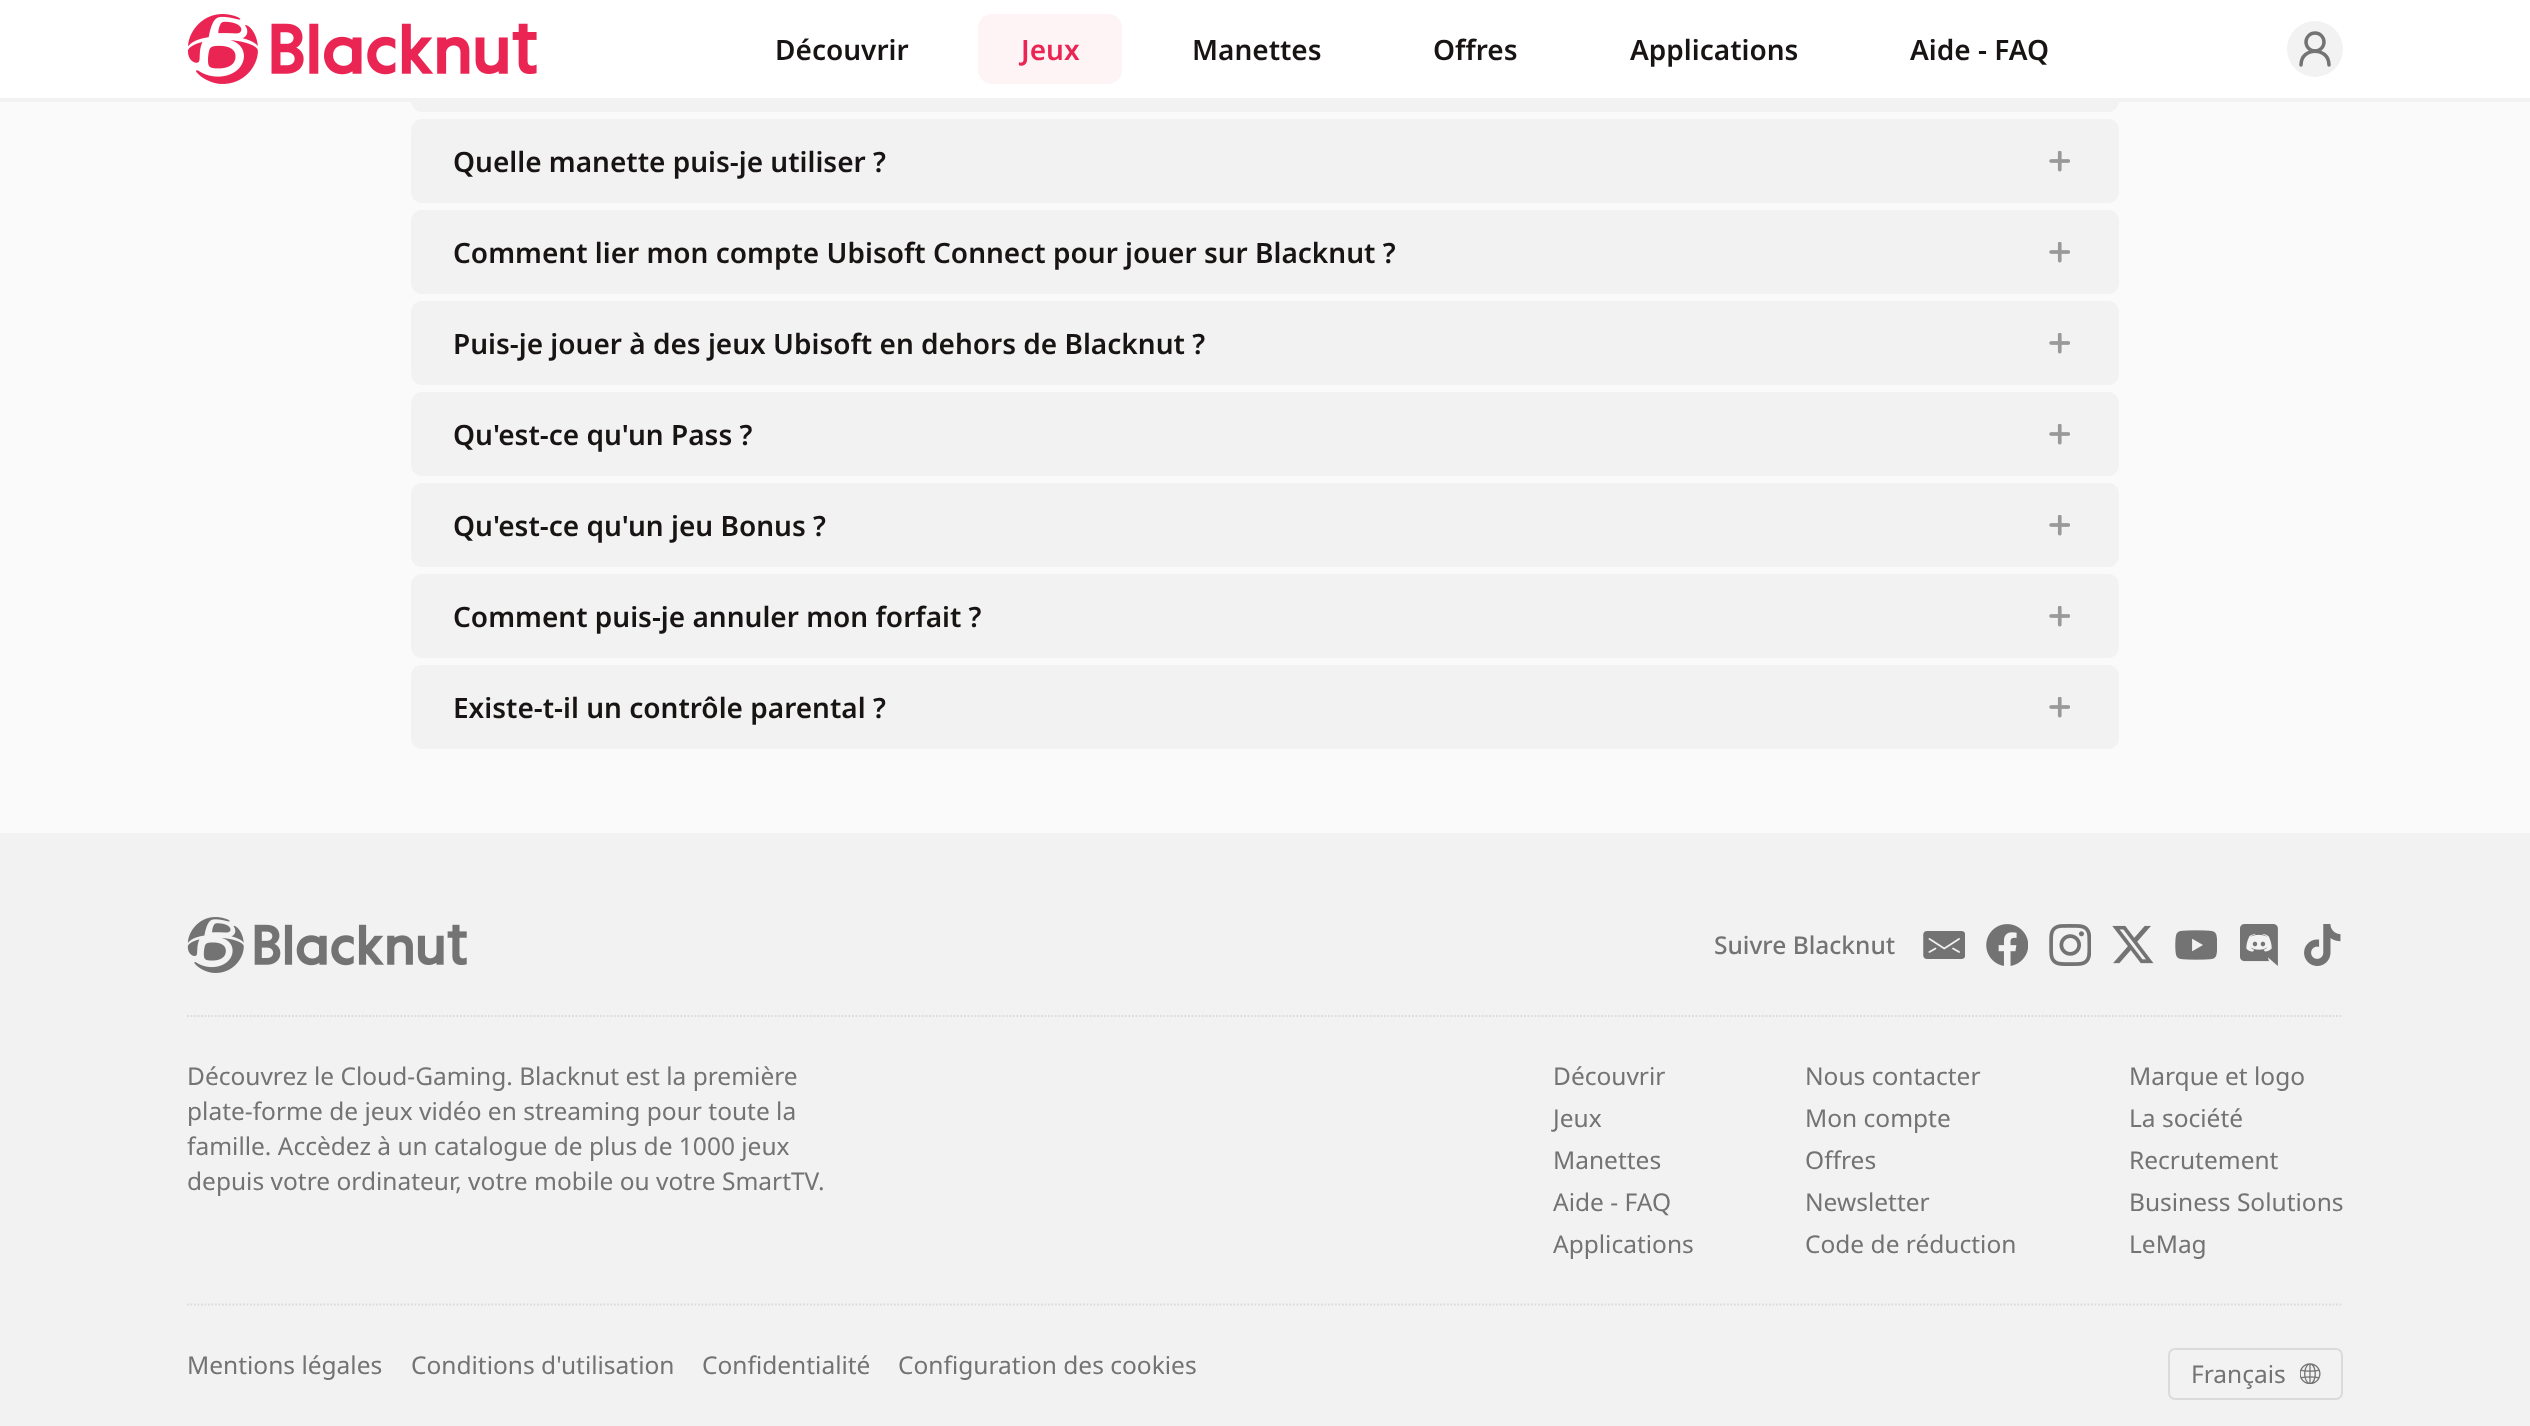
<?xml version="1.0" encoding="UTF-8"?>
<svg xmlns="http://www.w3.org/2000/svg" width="2530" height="1426">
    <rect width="100%" height="100%" fill="#FAFAFA"/>
    <rect x="411" y="28" width="1708" height="84" rx="11" fill="#F2F2F2"/>
    <rect x="0" y="0" width="2530" height="98" fill="#FFFFFF"/>
    <rect x="0" y="98" width="2530" height="4" fill="#F2F2F2"/>
    <image x="187" y="14" width="350" height="70" href="img_01.png"/>
    <text x="775" y="60" font-family="Noto Sans" font-size="28" font-weight="600" fill="#191414">Découvrir</text>
    <rect x="978" y="14" width="144" height="70" rx="14" fill="#FEF4F6"/>
    <text x="1021" y="60" font-family="Noto Sans" font-size="28" font-weight="600" fill="#EB2553">Jeux</text>
    <text x="1192" y="60" font-family="Noto Sans" font-size="28" font-weight="600" fill="#191414">Manettes</text>
    <text x="1433" y="60" font-family="Noto Sans" font-size="28" font-weight="600" fill="#191414">Offres</text>
    <text x="1630" y="60" font-family="Noto Sans" font-size="28" font-weight="600" fill="#191414">Applications</text>
    <text x="1910" y="60" font-family="Noto Sans" font-size="28" font-weight="600" fill="#191414">Aide - FAQ</text>
    <circle cx="2315" cy="49" r="28" fill="#F2F2F2"/>
    <circle cx="2315" cy="42" r="9" fill="none" stroke="#737373" stroke-width="3.5"/>
    <path d="M 2329 65 C 2329 46.5 2301 46.5 2301 65" fill="none" stroke="#737373" stroke-width="3.5" stroke-linecap="round" stroke-linejoin="round"/>
    <rect x="411" y="119" width="1708" height="84" rx="11" fill="#F2F2F2"/>
    <text x="453" y="172" font-family="Noto Sans" font-size="28" font-weight="600" fill="#191414">Quelle manette puis-je utiliser ?</text>
    <image x="2049" y="151" width="21" height="21" href="img_02.png"/>
    <rect x="411" y="210" width="1708" height="84" rx="11" fill="#F2F2F2"/>
    <text x="453" y="263" font-family="Noto Sans" font-size="28" font-weight="600" fill="#191414">Comment lier mon compte Ubisoft Connect pour jouer sur Blacknut ?</text>
    <image x="2049" y="242" width="21" height="21" href="img_02.png"/>
    <rect x="411" y="301" width="1708" height="84" rx="11" fill="#F2F2F2"/>
    <text x="453" y="354" font-family="Noto Sans" font-size="28" font-weight="600" fill="#191414">Puis-je jouer à des jeux Ubisoft en dehors de Blacknut ?</text>
    <image x="2049" y="333" width="21" height="21" href="img_02.png"/>
    <rect x="411" y="392" width="1708" height="84" rx="11" fill="#F2F2F2"/>
    <text x="453" y="445" font-family="Noto Sans" font-size="28" font-weight="600" fill="#191414">Qu'est-ce qu'un Pass ?</text>
    <image x="2049" y="424" width="21" height="21" href="img_02.png"/>
    <rect x="411" y="483" width="1708" height="84" rx="11" fill="#F2F2F2"/>
    <text x="453" y="536" font-family="Noto Sans" font-size="28" font-weight="600" fill="#191414">Qu'est-ce qu'un jeu Bonus ?</text>
    <image x="2049" y="515" width="21" height="21" href="img_02.png"/>
    <rect x="411" y="574" width="1708" height="84" rx="11" fill="#F2F2F2"/>
    <text x="453" y="627" font-family="Noto Sans" font-size="28" font-weight="600" fill="#191414">Comment puis-je annuler mon forfait ?</text>
    <image x="2049" y="606" width="21" height="21" href="img_02.png"/>
    <rect x="411" y="665" width="1708" height="84" rx="11" fill="#F2F2F2"/>
    <text x="453" y="718" font-family="Noto Sans" font-size="28" font-weight="600" fill="#191414">Existe-t-il un contrôle parental ?</text>
    <image x="2049" y="697" width="21" height="21" href="img_02.png"/>
    <rect x="0" y="833" width="2530" height="593" fill="#F2F2F2"/>
    <image x="187" y="917" width="280" height="56" href="img_03.png"/>
    <text x="1714" y="954" font-family="Noto Sans" font-size="24.5" font-weight="500" fill="#737373">Suivre Blacknut</text>
    <image x="1923" y="931" width="42" height="28" href="img_04.png"/>
    <image x="1986" y="924" width="42" height="42" href="img_05.png"/>
    <image x="2049" y="924" width="42" height="42" href="img_06.png"/>
    <image x="2112" y="925" width="42" height="39" href="img_07.png"/>
    <image x="2175" y="930" width="42" height="30" href="img_08.png"/>
    <image x="2240" y="924" width="38" height="42" href="img_09.png"/>
    <image x="2304" y="924" width="37" height="42" href="img_10.png"/>
    <path d="M 187 1016 H 2343" fill="none" stroke="#DBDBDB" stroke-width="1.8" stroke-dasharray="1.75 1.75"/>
    <path d="M 187 1304.5 H 2343" fill="none" stroke="#DBDBDB" stroke-width="1.8" stroke-dasharray="1.75 1.75"/>
    <text font-family="Noto Sans" font-size="24.5" fill="#737373">
        <tspan x="187" y="1085">Découvrez le Cloud-Gaming. Blacknut est la première</tspan>
        <tspan x="187" y="1120">plate-forme de jeux vidéo en streaming pour toute la</tspan>
        <tspan x="187" y="1155">famille. Accèdez à un catalogue de plus de 1000 jeux</tspan>
        <tspan x="187" y="1190">depuis votre ordinateur, votre mobile ou votre SmartTV.</tspan>
    </text>
    <text font-family="Noto Sans" font-size="24.5" fill="#737373">
        <tspan x="1553" y="1085">Découvrir</tspan>
        <tspan x="1553" y="1127">Jeux</tspan>
        <tspan x="1553" y="1169">Manettes</tspan>
        <tspan x="1553" y="1211">Aide - FAQ</tspan>
        <tspan x="1553" y="1253">Applications</tspan>
    </text>
    <text font-family="Noto Sans" font-size="24.5" fill="#737373">
        <tspan x="1805" y="1085">Nous contacter</tspan>
        <tspan x="1805" y="1127">Mon compte</tspan>
        <tspan x="1805" y="1169">Offres</tspan>
        <tspan x="1805" y="1211">Newsletter</tspan>
        <tspan x="1805" y="1253">Code de réduction</tspan>
    </text>
    <text font-family="Noto Sans" font-size="24.5" fill="#737373">
        <tspan x="2129" y="1085">Marque et logo</tspan>
        <tspan x="2129" y="1127">La société</tspan>
        <tspan x="2129" y="1169">Recrutement</tspan>
        <tspan x="2129" y="1211">Business Solutions</tspan>
        <tspan x="2129" y="1253">LeMag</tspan>
    </text>
    <text x="187" y="1374" font-family="Noto Sans" font-size="24.5" fill="#737373">Mentions légales</text>
    <text x="411" y="1374" font-family="Noto Sans" font-size="24.5" fill="#737373">Conditions d'utilisation</text>
    <text x="702" y="1374" font-family="Noto Sans" font-size="24.5" fill="#737373">Confidentialité</text>
    <text x="898" y="1374" font-family="Noto Sans" font-size="24.5" fill="#737373">Configuration des cookies</text>
    <rect x="2169" y="1349" width="173" height="50" rx="6" fill="none" stroke="#DBDBDB" stroke-width="2"/>
    <text x="2191" y="1383" font-family="Noto Sans" font-size="24.5" fill="#737373">Français</text>
    <image x="2300" y="1363" width="21" height="21" href="img_11.png"/>
</svg>
